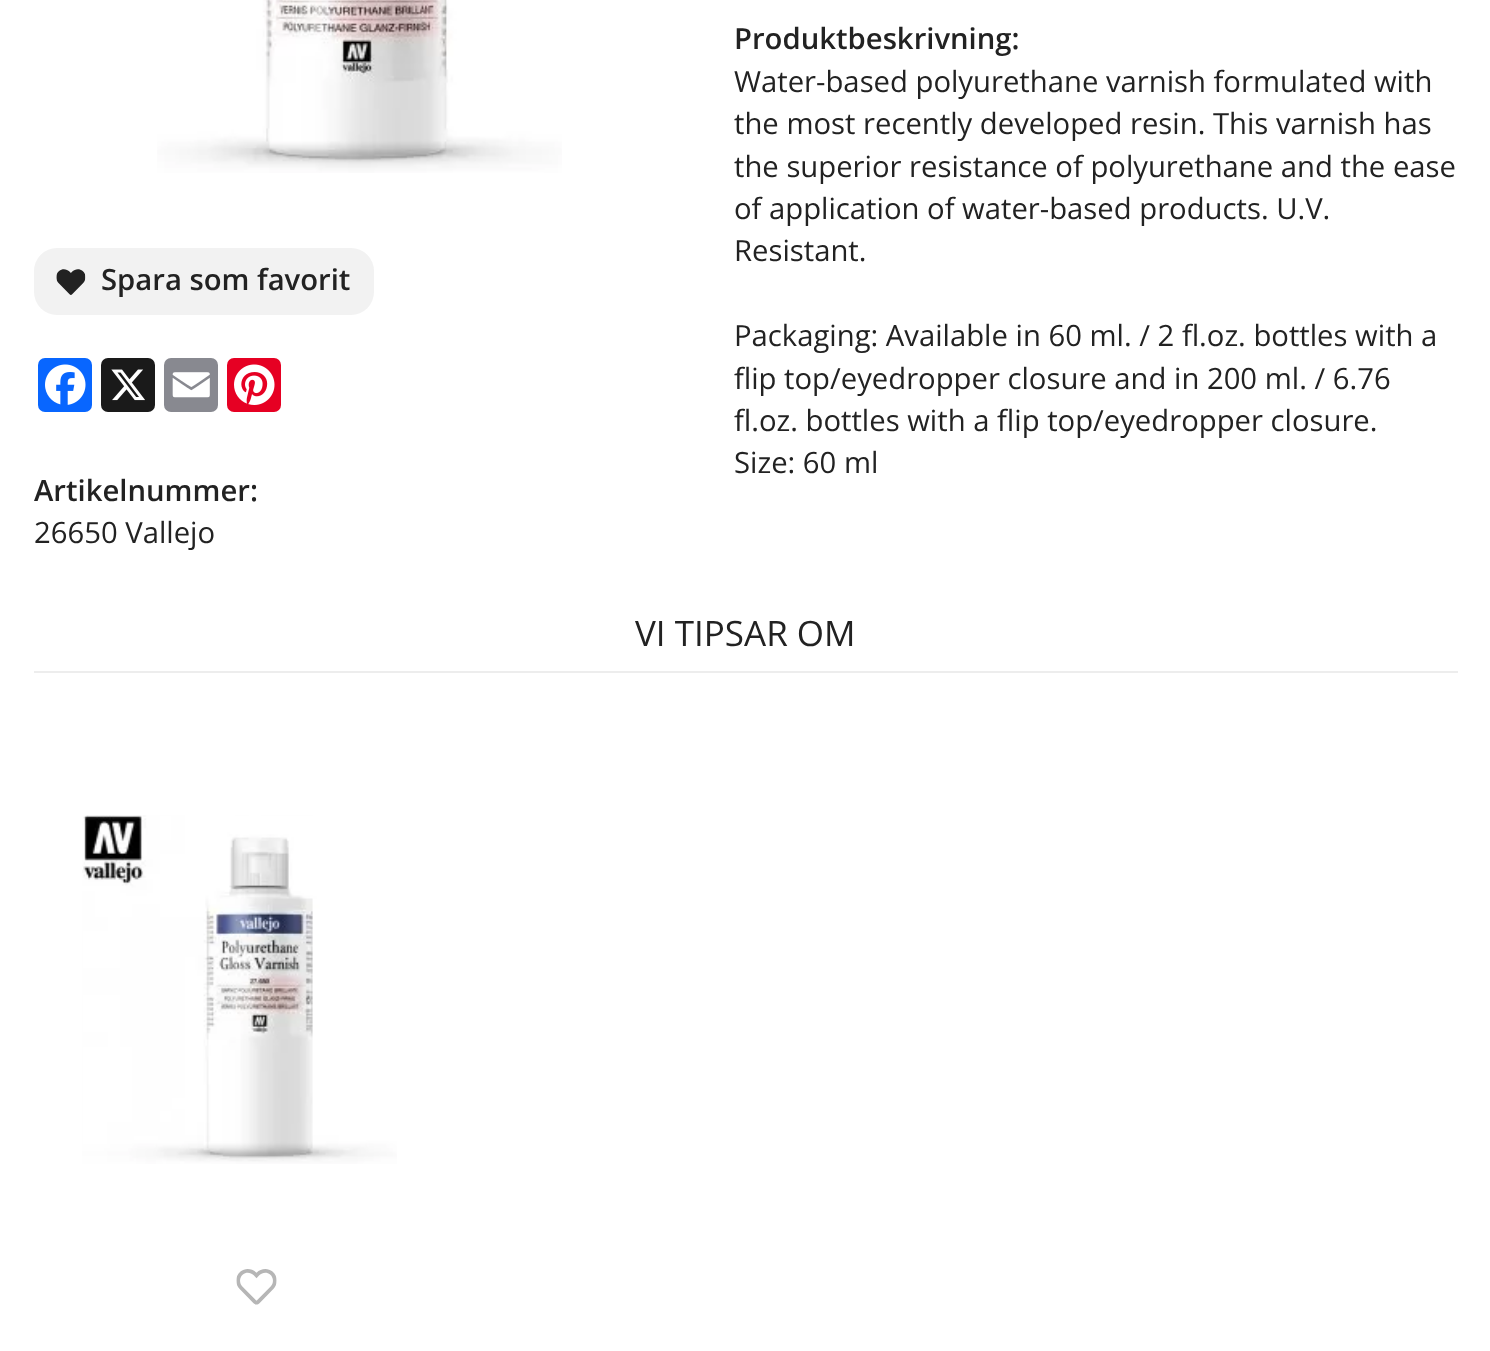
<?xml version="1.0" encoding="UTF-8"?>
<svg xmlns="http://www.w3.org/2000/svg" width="1490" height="1351">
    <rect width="100%" height="100%" fill="#FFFFFF"/>
    <image x="157" y="0" width="405" height="173" href="img_01.png"/>
    <text x="734" y="49" font-family="Open Sans" font-size="29.25" font-weight="600" fill="#222222">Produktbeskrivning:</text>
    <text font-family="Open Sans" font-size="29.25" fill="#222222">
        <tspan x="734" y="92">Water-based polyurethane varnish formulated with</tspan>
        <tspan x="734" y="134">the most recently developed resin. This varnish has</tspan>
        <tspan x="734" y="177">the superior resistance of polyurethane and the ease</tspan>
        <tspan x="734" y="219">of application of water-based products. U.V.</tspan>
        <tspan x="734" y="261">Resistant.</tspan>
    </text>
    <text font-family="Open Sans" font-size="29.25" fill="#222222">
        <tspan x="734" y="346">Packaging: Available in 60 ml. / 2 fl.oz. bottles with a</tspan>
        <tspan x="734" y="389">flip top/eyedropper closure and in 200 ml. / 6.76</tspan>
        <tspan x="734" y="431">fl.oz. bottles with a flip top/eyedropper closure.</tspan>
        <tspan x="734" y="473">Size: 60 ml</tspan>
    </text>
    <rect x="34" y="248" width="340" height="67" rx="23" fill="#F2F2F2"/>
    <image x="56" y="269" width="30" height="26" href="img_02.png"/>
    <text x="101" y="290" font-family="Open Sans" font-size="29.25" font-weight="600" fill="#222222">Spara som favorit</text>
    <rect x="38" y="358" width="54" height="54" rx="7" fill="#0866FF"/>
    <image x="45" y="364" width="41" height="41" href="img_03.png"/>
    <rect x="101" y="358" width="54" height="54" rx="7" fill="#1A1A1A"/>
    <image x="111" y="369" width="34" height="32" href="img_04.png"/>
    <rect x="164" y="358" width="54" height="54" rx="7" fill="#888990"/>
    <image x="172" y="372" width="38" height="26" href="img_05.png"/>
    <rect x="227" y="358" width="54" height="54" rx="7" fill="#E60023"/>
    <image x="234" y="364" width="41" height="41" href="img_06.png"/>
    <text x="34" y="501" font-family="Open Sans" font-size="29.25" font-weight="600" fill="#222222">Artikelnummer:</text>
    <text x="34" y="543" font-family="Open Sans" font-size="29.25" fill="#222222">26650 Vallejo</text>
    <rect x="34" y="671" width="1424" height="2" fill="#EDEDED"/>
    <text x="635" y="646" font-family="Open Sans" font-size="35" fill="#222222">VI TIPSAR OM</text>
    <image x="82" y="815" width="315" height="349" href="img_07.png"/>
    <image x="236" y="1269" width="41" height="36" href="img_08.png"/>
</svg>
